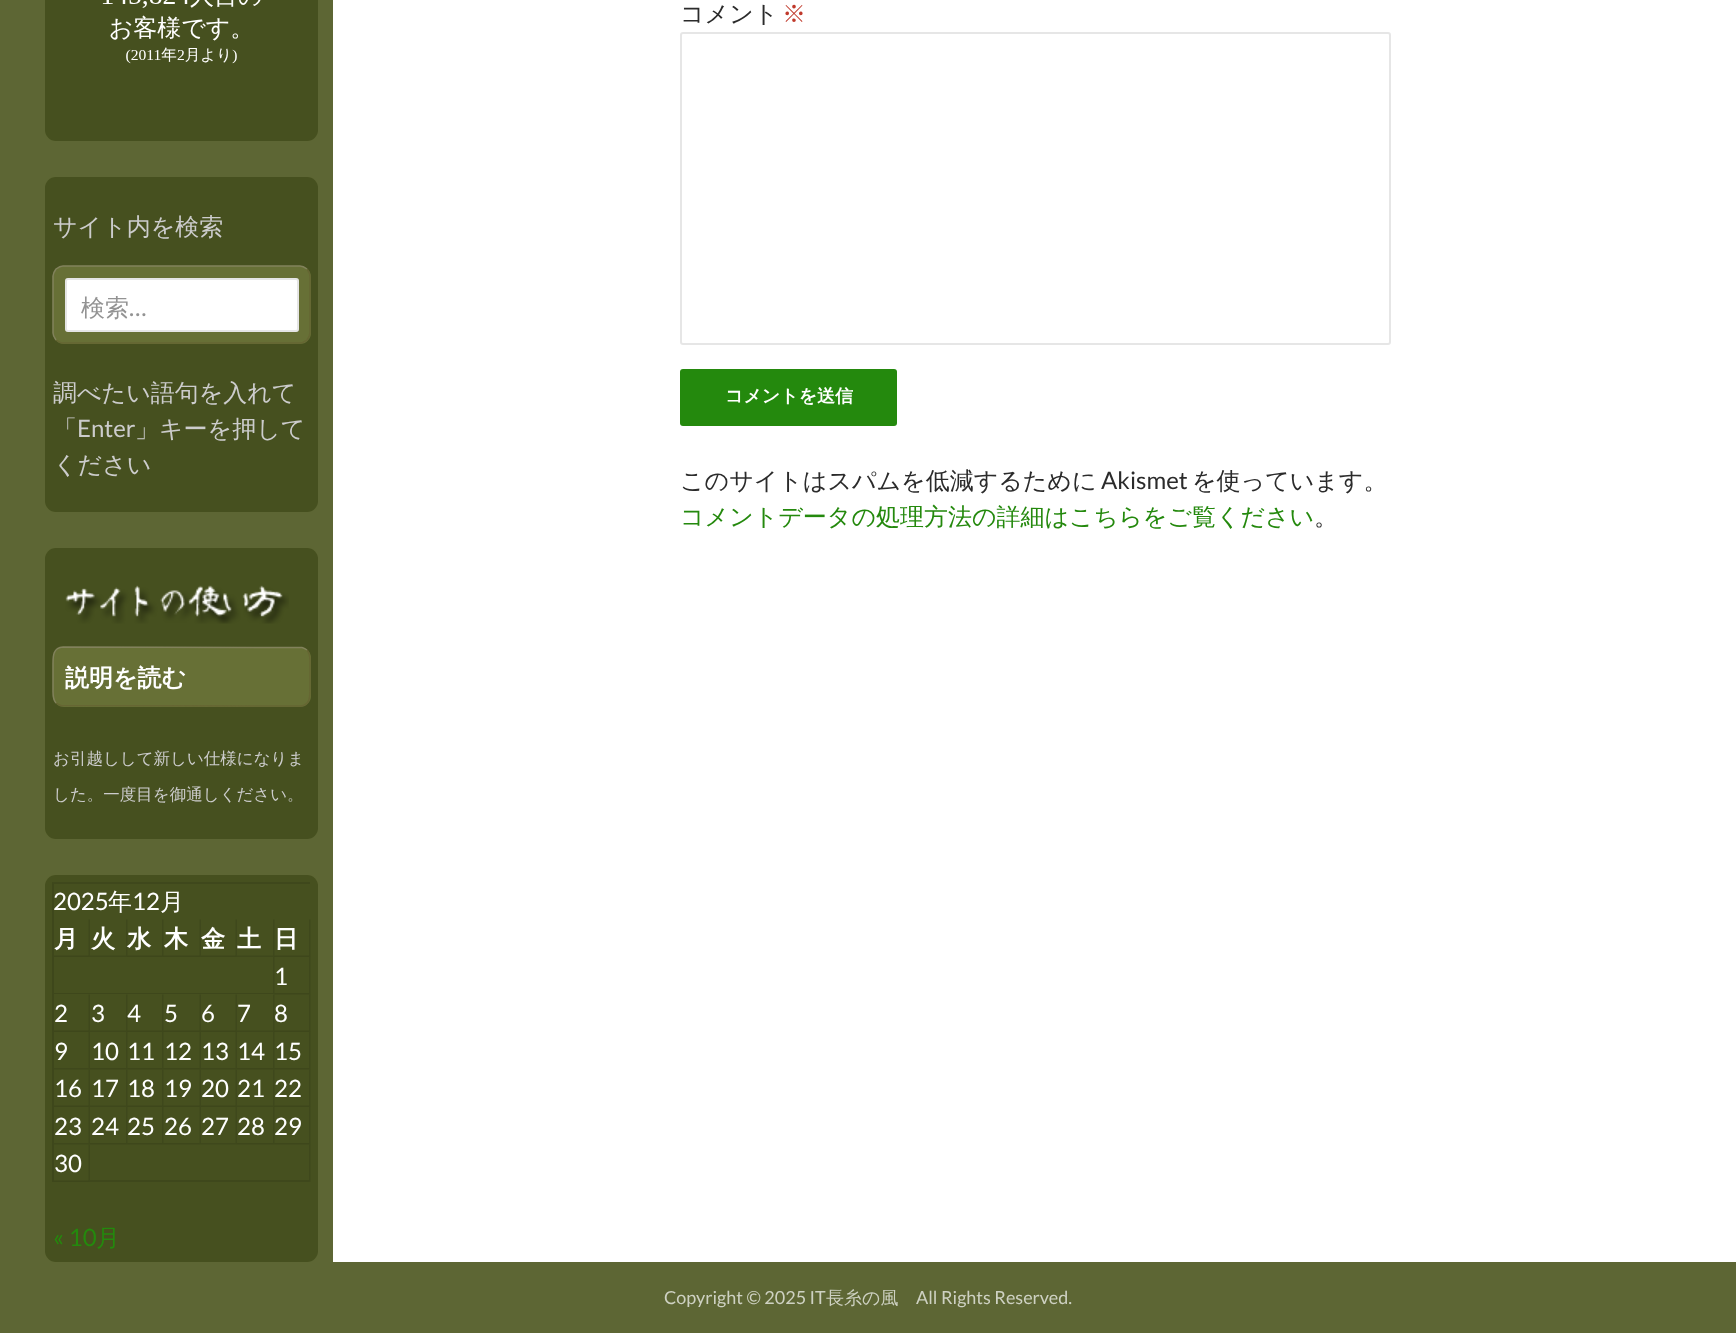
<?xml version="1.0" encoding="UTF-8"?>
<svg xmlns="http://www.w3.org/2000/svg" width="1736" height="1333">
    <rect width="100%" height="100%" fill="#FFFFFF"/>
    <rect x="0" y="0" width="333" height="1262" fill="#5D6634"/>
    <rect x="45" y="-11" width="273" height="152" rx="11" fill="#46501F"/>
    <image x="102" y="0" width="159" height="64" href="img_01.png"/>
    <rect x="45" y="177" width="273" height="335" rx="11" fill="#46501F"/>
    <text x="53" y="235" font-family="WenQuanYi Zen Hei" font-size="24" font-weight="500" fill="#CCCCCC">サイト内を検索</text>
    <rect x="53" y="266" width="258" height="78" rx="11" fill="#677036"/>
    <path d="M 307 269 C 308.5 271 310 273.5 310 276 V 333 C 310 335.5 308.5 338 307 340 C 305 341.5 302.5 343 300 343 H 63 C 60.5 343 58 341.5 56 340" fill="none" stroke="#666633" stroke-width="1.5"/>
    <path d="M 56 340 C 54.5 338 53 335.5 53 333 V 276 C 53 273.5 54.5 271 56 269 C 58 267.5 60.5 266 63 266 H 300 C 302.5 266 305 267.5 307 269" fill="none" stroke="#82825C" stroke-width="1.5"/>
    <rect x="65" y="278" width="234" height="54" rx="3" fill="#FFFFFF"/>
    <rect x="66" y="279" width="232" height="52" rx="2" fill="none" stroke="#000000" stroke-opacity="0.1" stroke-width="2"/>
    <text x="81" y="316" font-family="WenQuanYi Zen Hei" font-size="24" font-weight="500" fill="#939393">検索</text>
    <text x="129" y="316" font-family="Lato" font-size="24" fill="#939393">…</text>
    <text font-family="WenQuanYi Zen Hei" font-size="24" font-weight="500" fill="#CCCCCC">
        <tspan x="53" y="401">調べたい語句を入れて</tspan>
        <tspan x="53" y="437">「</tspan>
    </text>
    <text x="77" y="437" font-family="Lato" font-size="24" fill="#CCCCCC">Enter</text>
    <text x="135" y="437" font-family="WenQuanYi Zen Hei" font-size="24" font-weight="500" fill="#CCCCCC">」キーを押して</text>
    <text x="53" y="473" font-family="WenQuanYi Zen Hei" font-size="24" font-weight="500" fill="#CCCCCC">ください</text>
    <rect x="45" y="548" width="273" height="291" rx="11" fill="#46501F"/>
    <image x="65" y="585" width="224" height="39" href="img_02.png"/>
    <rect x="53" y="647" width="258" height="60" rx="11" fill="#677036"/>
    <path d="M 307 650 C 310.5 654 310 658.5 310 663.5 V 689.5 C 310 696.5 310 705.5 300 706 L 61 705.5 C 59 705 57.5 704 56 703" fill="none" stroke="#666633" stroke-width="1.5"/>
    <path d="M 56 703 C 52.5 699 53 694.5 53 689.5 V 663.5 C 53 656.5 53 647.5 63 647 L 302 647.5 C 304 648 305.5 649 307 650" fill="none" stroke="#82825C" stroke-width="1.5"/>
    <text x="65" y="686" font-family="WenQuanYi Zen Hei" font-size="24" font-weight="700" fill="#FFFFFF">説明を読む</text>
    <text x="53" y="764" font-family="WenQuanYi Zen Hei" font-size="16.5" font-weight="500" fill="#CCCCCC">お引越しして新しい仕様になりま</text>
    <text x="53" y="800" font-family="WenQuanYi Zen Hei" font-size="16.5" font-weight="500" fill="#CCCCCC">した。一度目を御通しください。</text>
    <rect x="45" y="875" width="273" height="387" rx="11" fill="#46501F"/>
    <path d="M 52 882 H 310 V 884 H 54 Z" fill="#3F481C"/>
    <path d="M 52 1182 V 882 L 54 884 V 1182 Z" fill="#000000" fill-opacity="0.1"/>
    <text x="53" y="910" font-family="Lato" font-size="24" fill="#FFFFFF">2025</text>
    <text x="108" y="910" font-family="WenQuanYi Zen Hei" font-size="24" font-weight="500" fill="#FFFFFF">年</text>
    <text x="132" y="910" font-family="Lato" font-size="24" fill="#FFFFFF">12</text>
    <text x="160" y="910" font-family="WenQuanYi Zen Hei" font-size="24" font-weight="500" fill="#FFFFFF">月</text>
    <path d="M 90 919.5 V 957 L 88.5 955.5 V 919.5 Z" fill="#3F481C"/>
    <path d="M 90 957 H 54 V 955.5 H 88.5 Z" fill="#000000" fill-opacity="0.1"/>
    <text x="54" y="947" font-family="WenQuanYi Zen Hei" font-size="24" font-weight="700" fill="#FFFFFF">月</text>
    <path d="M 127.5 919.5 V 957 L 126 955.5 V 919.5 Z" fill="#3F481C"/>
    <path d="M 127.5 957 H 90 V 955.5 H 126 Z" fill="#3F481C"/>
    <text x="91" y="947" font-family="WenQuanYi Zen Hei" font-size="24" font-weight="700" fill="#FFFFFF">火</text>
    <path d="M 163.5 919.5 V 957 L 162 955.5 V 919.5 Z" fill="#3F481C"/>
    <path d="M 163.5 957 H 127.5 V 955.5 H 162 Z" fill="#000000" fill-opacity="0.1"/>
    <text x="127" y="947" font-family="WenQuanYi Zen Hei" font-size="24" font-weight="700" fill="#FFFFFF">水</text>
    <path d="M 201 919.5 V 957 L 199.5 955.5 V 919.5 Z" fill="#3F481C"/>
    <path d="M 201 957 H 163.5 V 955.5 H 199.5 Z" fill="#000000" fill-opacity="0.1"/>
    <text x="164" y="947" font-family="WenQuanYi Zen Hei" font-size="24" font-weight="700" fill="#FFFFFF">木</text>
    <path d="M 237 919.5 V 957 L 235.5 955.5 V 919.5 Z" fill="#3F481C"/>
    <path d="M 237 957 H 201 V 955.5 H 235.5 Z" fill="#000000" fill-opacity="0.1"/>
    <text x="201" y="947" font-family="WenQuanYi Zen Hei" font-size="24" font-weight="700" fill="#FFFFFF">金</text>
    <path d="M 274.5 919.5 V 957 L 273 955.5 V 919.5 Z" fill="#3F481C"/>
    <path d="M 274.5 957 H 237 V 955.5 H 273 Z" fill="#3F481C"/>
    <text x="237" y="947" font-family="WenQuanYi Zen Hei" font-size="24" font-weight="700" fill="#FFFFFF">土</text>
    <path d="M 310.5 919.5 V 957 L 309 955.5 V 919.5 Z" fill="#3F481C"/>
    <path d="M 310.5 957 H 274.5 V 955.5 H 309 Z" fill="#000000" fill-opacity="0.1"/>
    <text x="274" y="947" font-family="WenQuanYi Zen Hei" font-size="24" font-weight="700" fill="#FFFFFF">日</text>
    <path d="M 274.5 957 V 994.5 L 273 993 V 957 Z" fill="#3F481C"/>
    <path d="M 274 994 H 54 V 993 H 273 Z" fill="#000000" fill-opacity="0.1"/>
    <path d="M 310.5 957 V 994.5 L 309 993 V 957 Z" fill="#3F481C"/>
    <path d="M 310.5 994.5 H 274.5 V 993 H 309 Z" fill="#000000" fill-opacity="0.1"/>
    <text x="274" y="985" font-family="Lato" font-size="24" fill="#FFFFFF">1</text>
    <path d="M 90 994.5 V 1032 L 88.5 1030.5 V 994.5 Z" fill="#3F481C"/>
    <path d="M 90 1032 H 54 V 1030.5 H 88.5 Z" fill="#000000" fill-opacity="0.1"/>
    <text x="54" y="1022" font-family="Lato" font-size="24" fill="#FFFFFF">2</text>
    <path d="M 127.5 994.5 V 1032 L 126 1030.5 V 994.5 Z" fill="#3F481C"/>
    <path d="M 127.5 1032 H 90 V 1030.5 H 126 Z" fill="#3F481C"/>
    <text x="91" y="1022" font-family="Lato" font-size="24" fill="#FFFFFF">3</text>
    <path d="M 163.5 994.5 V 1032 L 162 1030.5 V 994.5 Z" fill="#3F481C"/>
    <path d="M 163.5 1032 H 127.5 V 1030.5 H 162 Z" fill="#000000" fill-opacity="0.1"/>
    <text x="127" y="1022" font-family="Lato" font-size="24" fill="#FFFFFF">4</text>
    <path d="M 201 994.5 V 1032 L 199.5 1030.5 V 994.5 Z" fill="#3F481C"/>
    <path d="M 201 1032 H 163.5 V 1030.5 H 199.5 Z" fill="#000000" fill-opacity="0.1"/>
    <text x="164" y="1022" font-family="Lato" font-size="24" fill="#FFFFFF">5</text>
    <path d="M 237 994.5 V 1032 L 235.5 1030.5 V 994.5 Z" fill="#3F481C"/>
    <path d="M 237 1032 H 201 V 1030.5 H 235.5 Z" fill="#000000" fill-opacity="0.1"/>
    <text x="201" y="1022" font-family="Lato" font-size="24" fill="#FFFFFF">6</text>
    <path d="M 274.5 994.5 V 1032 L 273 1030.5 V 994.5 Z" fill="#3F481C"/>
    <path d="M 274.5 1032 H 237 V 1030.5 H 273 Z" fill="#3F481C"/>
    <text x="237" y="1022" font-family="Lato" font-size="24" fill="#FFFFFF">7</text>
    <path d="M 310.5 994.5 V 1032 L 309 1030.5 V 994.5 Z" fill="#3F481C"/>
    <path d="M 310.5 1032 H 274.5 V 1030.5 H 309 Z" fill="#000000" fill-opacity="0.1"/>
    <text x="274" y="1022" font-family="Lato" font-size="24" fill="#FFFFFF">8</text>
    <path d="M 90 1032 V 1069.5 L 88.5 1068 V 1032 Z" fill="#3F481C"/>
    <path d="M 90 1069.5 H 54 V 1068 H 88.5 Z" fill="#3F481C"/>
    <text x="54" y="1060" font-family="Lato" font-size="24" fill="#FFFFFF">9</text>
    <path d="M 127.5 1032 V 1069.5 L 126 1068 V 1032 Z" fill="#3F481C"/>
    <path d="M 127.5 1069.5 H 90 V 1068 H 126 Z" fill="#000000" fill-opacity="0.1"/>
    <text x="91" y="1060" font-family="Lato" font-size="24" fill="#FFFFFF">10</text>
    <path d="M 163.5 1032 V 1069.5 L 162 1068 V 1032 Z" fill="#3F481C"/>
    <path d="M 163.5 1069.5 H 127.5 V 1068 H 162 Z" fill="#000000" fill-opacity="0.1"/>
    <text x="127" y="1060" font-family="Lato" font-size="24" fill="#FFFFFF">11</text>
    <path d="M 201 1032 V 1069.5 L 199.5 1068 V 1032 Z" fill="#3F481C"/>
    <path d="M 201 1069.5 H 163.5 V 1068 H 199.5 Z" fill="#000000" fill-opacity="0.1"/>
    <text x="164" y="1060" font-family="Lato" font-size="24" fill="#FFFFFF">12</text>
    <path d="M 237 1032 V 1069.5 L 235.5 1068 V 1032 Z" fill="#3F481C"/>
    <path d="M 237 1069.5 H 201 V 1068 H 235.5 Z" fill="#3F481C"/>
    <text x="201" y="1060" font-family="Lato" font-size="24" fill="#FFFFFF">13</text>
    <path d="M 274.5 1032 V 1069.5 L 273 1068 V 1032 Z" fill="#3F481C"/>
    <path d="M 274.5 1069.5 H 237 V 1068 H 273 Z" fill="#000000" fill-opacity="0.1"/>
    <text x="237" y="1060" font-family="Lato" font-size="24" fill="#FFFFFF">14</text>
    <path d="M 310.5 1032 V 1069.5 L 309 1068 V 1032 Z" fill="#3F481C"/>
    <path d="M 310.5 1069.5 H 274.5 V 1068 H 309 Z" fill="#000000" fill-opacity="0.1"/>
    <text x="274" y="1060" font-family="Lato" font-size="24" fill="#FFFFFF">15</text>
    <path d="M 90 1069.5 V 1107 L 88.5 1105.5 V 1069.5 Z" fill="#3F481C"/>
    <path d="M 90 1107 H 54 V 1105.5 H 88.5 Z" fill="#000000" fill-opacity="0.1"/>
    <text x="54" y="1097" font-family="Lato" font-size="24" fill="#FFFFFF">16</text>
    <path d="M 127.5 1069.5 V 1107 L 126 1105.5 V 1069.5 Z" fill="#3F481C"/>
    <path d="M 127.5 1107 H 90 V 1105.5 H 126 Z" fill="#3F481C"/>
    <text x="91" y="1097" font-family="Lato" font-size="24" fill="#FFFFFF">17</text>
    <path d="M 163.5 1069.5 V 1107 L 162 1105.5 V 1069.5 Z" fill="#3F481C"/>
    <path d="M 163.5 1107 H 127.5 V 1105.5 H 162 Z" fill="#000000" fill-opacity="0.1"/>
    <text x="127" y="1097" font-family="Lato" font-size="24" fill="#FFFFFF">18</text>
    <path d="M 201 1069.5 V 1107 L 199.5 1105.5 V 1069.5 Z" fill="#3F481C"/>
    <path d="M 201 1107 H 163.5 V 1105.5 H 199.5 Z" fill="#000000" fill-opacity="0.1"/>
    <text x="164" y="1097" font-family="Lato" font-size="24" fill="#FFFFFF">19</text>
    <path d="M 237 1069.5 V 1107 L 235.5 1105.5 V 1069.5 Z" fill="#3F481C"/>
    <path d="M 237 1107 H 201 V 1105.5 H 235.5 Z" fill="#000000" fill-opacity="0.1"/>
    <text x="201" y="1097" font-family="Lato" font-size="24" fill="#FFFFFF">20</text>
    <path d="M 274.5 1069.5 V 1107 L 273 1105.5 V 1069.5 Z" fill="#3F481C"/>
    <path d="M 274.5 1107 H 237 V 1105.5 H 273 Z" fill="#3F481C"/>
    <text x="237" y="1097" font-family="Lato" font-size="24" fill="#FFFFFF">21</text>
    <path d="M 310.5 1069.5 V 1107 L 309 1105.5 V 1069.5 Z" fill="#3F481C"/>
    <path d="M 310.5 1107 H 274.5 V 1105.5 H 309 Z" fill="#000000" fill-opacity="0.1"/>
    <text x="274" y="1097" font-family="Lato" font-size="24" fill="#FFFFFF">22</text>
    <path d="M 90 1107 V 1144.5 L 88.5 1143 V 1107 Z" fill="#3F481C"/>
    <path d="M 90 1144.5 H 54 V 1143 H 88.5 Z" fill="#3F481C"/>
    <text x="54" y="1135" font-family="Lato" font-size="24" fill="#FFFFFF">23</text>
    <path d="M 127.5 1107 V 1144.5 L 126 1143 V 1107 Z" fill="#3F481C"/>
    <path d="M 127.5 1144.5 H 90 V 1143 H 126 Z" fill="#000000" fill-opacity="0.1"/>
    <text x="91" y="1135" font-family="Lato" font-size="24" fill="#FFFFFF">24</text>
    <path d="M 163.5 1107 V 1144.5 L 162 1143 V 1107 Z" fill="#3F481C"/>
    <path d="M 163.5 1144.5 H 127.5 V 1143 H 162 Z" fill="#000000" fill-opacity="0.1"/>
    <text x="127" y="1135" font-family="Lato" font-size="24" fill="#FFFFFF">25</text>
    <path d="M 201 1107 V 1144.5 L 199.5 1143 V 1107 Z" fill="#3F481C"/>
    <path d="M 201 1144.5 H 163.5 V 1143 H 199.5 Z" fill="#000000" fill-opacity="0.1"/>
    <text x="164" y="1135" font-family="Lato" font-size="24" fill="#FFFFFF">26</text>
    <path d="M 237 1107 V 1144.5 L 235.5 1143 V 1107 Z" fill="#3F481C"/>
    <path d="M 237 1144.5 H 201 V 1143 H 235.5 Z" fill="#3F481C"/>
    <text x="201" y="1135" font-family="Lato" font-size="24" fill="#FFFFFF">27</text>
    <path d="M 274.5 1107 V 1144.5 L 273 1143 V 1107 Z" fill="#3F481C"/>
    <path d="M 274.5 1144.5 H 237 V 1143 H 273 Z" fill="#000000" fill-opacity="0.1"/>
    <text x="237" y="1135" font-family="Lato" font-size="24" fill="#FFFFFF">28</text>
    <path d="M 310.5 1107 V 1144.5 L 309 1143 V 1107 Z" fill="#3F481C"/>
    <path d="M 310.5 1144.5 H 274.5 V 1143 H 309 Z" fill="#000000" fill-opacity="0.1"/>
    <text x="274" y="1135" font-family="Lato" font-size="24" fill="#FFFFFF">29</text>
    <path d="M 90 1144.5 V 1182 L 88.5 1180.5 V 1144.5 Z" fill="#3F481C"/>
    <path d="M 90 1182 H 54 V 1180.5 H 88.5 Z" fill="#000000" fill-opacity="0.1"/>
    <text x="54" y="1172" font-family="Lato" font-size="24" fill="#FFFFFF">30</text>
    <path d="M 310.5 1144.5 V 1182 L 309 1180.5 V 1144.5 Z" fill="#3F481C"/>
    <path d="M 310 1182 H 90 V 1180 H 309 Z" fill="#3F481C"/>
    <text x="53" y="1246" font-family="Lato" font-size="24" fill="#24890D">« 10</text>
    <text x="96" y="1246" font-family="WenQuanYi Zen Hei" font-size="24" font-weight="500" fill="#24890D">月</text>
    <text x="680" y="22" font-family="WenQuanYi Zen Hei" font-size="24" font-weight="500" fill="#2B2B2B">コメント</text>
    <text x="782" y="22" font-family="WenQuanYi Zen Hei" font-size="24" font-weight="500" fill="#C0392B">※</text>
    <rect x="681" y="33" width="709" height="311" rx="2" fill="none" stroke="#E6E6E6" stroke-width="2"/>
    <rect x="680" y="369" width="217" height="57" rx="3" fill="#24890D"/>
    <text x="725" y="402" font-family="WenQuanYi Zen Hei" font-size="18" font-weight="700" fill="#FFFFFF">コメントを送信</text>
    <text x="680" y="489" font-family="WenQuanYi Zen Hei" font-size="24" font-weight="500" fill="#2B2B2B">このサイトはスパムを低減するために</text>
    <text x="1101" y="489" font-family="Lato" font-size="24" fill="#2B2B2B">Akismet</text>
    <text x="1192" y="489" font-family="WenQuanYi Zen Hei" font-size="24" font-weight="500" fill="#2B2B2B">を使っています。</text>
    <text x="680" y="525" font-family="WenQuanYi Zen Hei" font-size="24" font-weight="500" fill="#24890D">コメントデータの処理方法の詳細はこちらをご覧ください</text>
    <text x="1314" y="525" font-family="WenQuanYi Zen Hei" font-size="24" font-weight="500" fill="#2B2B2B">。</text>
    <rect x="0" y="1262" width="1736" height="71" fill="#5D6634"/>
    <text x="664" y="1304" font-family="Lato" font-size="18" fill="#CED1C2">Copyright © 2025 IT</text>
    <text x="826" y="1304" font-family="WenQuanYi Zen Hei" font-size="18" font-weight="500" fill="#CED1C2">長糸の風</text>
    <text x="916" y="1304" font-family="Lato" font-size="18" fill="#CED1C2">All Rights Reserved.</text>
</svg>
